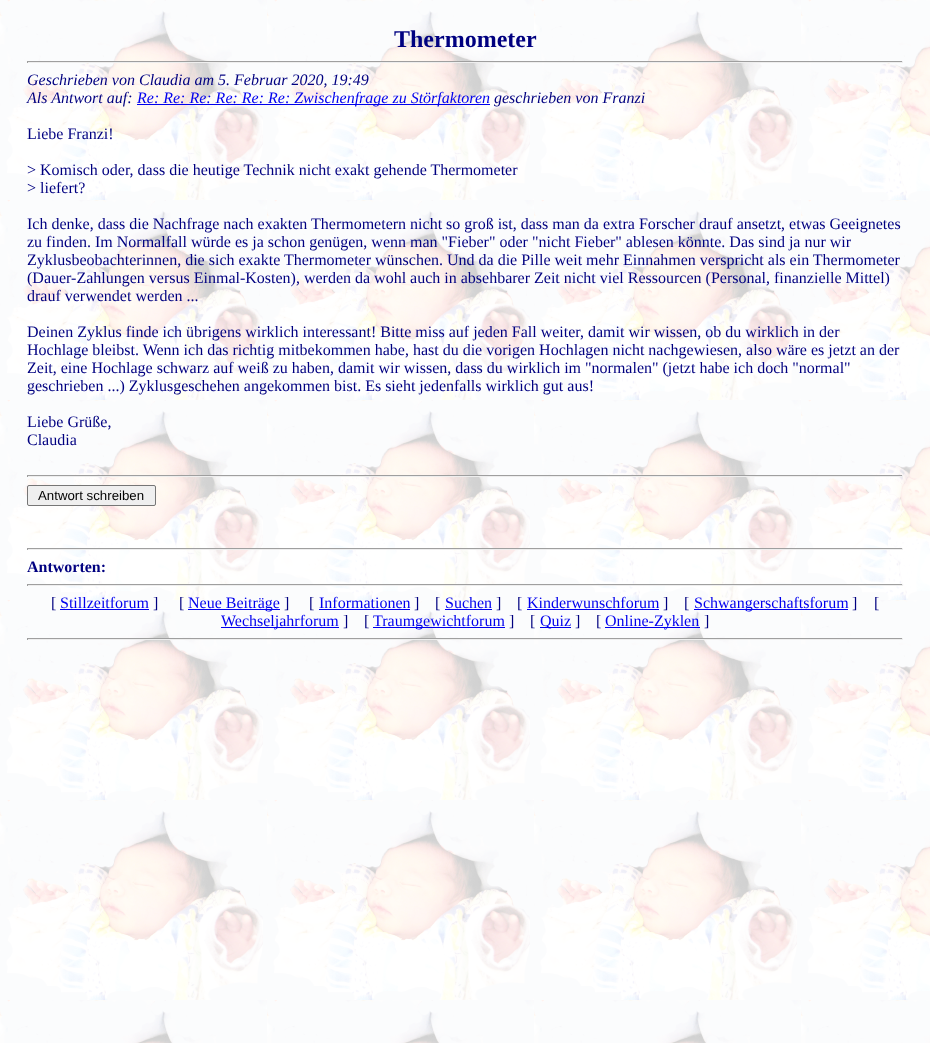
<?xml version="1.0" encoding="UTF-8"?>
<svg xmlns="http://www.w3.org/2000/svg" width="930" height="1043">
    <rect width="100%" height="100%" fill="#FFFFFF"/>
    <image x="0" y="0" width="930" height="1043" href="img_01.png"/>
    <text x="394" y="47" font-family="Liberation Serif" font-size="24" font-weight="700" fill="#000080">Thermometer</text>
    <rect x="27" y="61" width="876" height="1" fill="#9F9F9F"/>
    <rect x="902" y="61" width="1" height="2" fill="#EEEEEE"/>
    <rect x="27" y="62" width="876" height="1" fill="#EEEEEE"/>
    <rect x="27" y="61" width="1" height="2" fill="#9F9F9F"/>
    <text font-family="Liberation Serif" font-size="16" font-style="italic" fill="#000080">
        <tspan x="27" y="85">Geschrieben von Claudia am 5. Februar 2020, 19:49</tspan>
        <tspan x="27" y="103">Als Antwort auf:</tspan>
    </text>
    <rect x="137" y="104" width="353" height="1" fill="#0000EE"/>
    <text x="137" y="103" font-family="Liberation Serif" font-size="16" font-style="italic" fill="#0000EE">Re: Re: Re: Re: Re: Re: Zwischenfrage zu Störfaktoren</text>
    <text x="494" y="103" font-family="Liberation Serif" font-size="16" font-style="italic" fill="#000080">geschrieben von Franzi</text>
    <text x="27" y="139" font-family="Liberation Serif" font-size="16" fill="#000080">Liebe Franzi!</text>
    <text font-family="Liberation Serif" font-size="16" fill="#000080">
        <tspan x="27" y="175">&gt; Komisch oder, dass die heutige Technik nicht exakt gehende Thermometer</tspan>
        <tspan x="27" y="193">&gt; liefert?</tspan>
    </text>
    <text font-family="Liberation Serif" font-size="16" fill="#000080">
        <tspan x="27" y="229">Ich denke, dass die Nachfrage nach exakten Thermometern nicht so groß ist, dass man da extra Forscher drauf ansetzt, etwas Geeignetes</tspan>
        <tspan x="27" y="247">zu finden. Im Normalfall würde es ja schon genügen, wenn man "Fieber" oder "nicht Fieber" ablesen könnte. Das sind ja nur wir</tspan>
        <tspan x="27" y="265">Zyklusbeobachterinnen, die sich exakte Thermometer wünschen. Und da die Pille weit mehr Einnahmen verspricht als ein Thermometer</tspan>
        <tspan x="27" y="283">(Dauer-Zahlungen versus Einmal-Kosten), werden da wohl auch in absehbarer Zeit nicht viel Ressourcen (Personal, finanzielle Mittel)</tspan>
        <tspan x="27" y="301">drauf verwendet werden ...</tspan>
    </text>
    <text font-family="Liberation Serif" font-size="16" fill="#000080">
        <tspan x="27" y="337">Deinen Zyklus finde ich übrigens wirklich interessant! Bitte miss auf jeden Fall weiter, damit wir wissen, ob du wirklich in der</tspan>
        <tspan x="27" y="355">Hochlage bleibst. Wenn ich das richtig mitbekommen habe, hast du die vorigen Hochlagen nicht nachgewiesen, also wäre es jetzt an der</tspan>
        <tspan x="27" y="373">Zeit, eine Hochlage schwarz auf weiß zu haben, damit wir wissen, dass du wirklich im "normalen" (jetzt habe ich doch "normal"</tspan>
        <tspan x="27" y="391">geschrieben ...) Zyklusgeschehen angekommen bist. Es sieht jedenfalls wirklich gut aus!</tspan>
    </text>
    <text font-family="Liberation Serif" font-size="16" fill="#000080">
        <tspan x="27" y="427">Liebe Grüße,</tspan>
        <tspan x="27" y="445">Claudia</tspan>
    </text>
    <rect x="27" y="475" width="876" height="1" fill="#9F9F9F"/>
    <rect x="902" y="475" width="1" height="2" fill="#EEEEEE"/>
    <rect x="27" y="476" width="876" height="1" fill="#EEEEEE"/>
    <rect x="27" y="475" width="1" height="2" fill="#9F9F9F"/>
    <rect x="27.5" y="485.5" width="128" height="20" rx="1.5" fill="#EFEFEF" stroke="#767676"/>
    <text x="38" y="500" font-family="Liberation Sans" font-size="13.25" fill="#000000">Antwort schreiben</text>
    <rect x="27" y="548" width="876" height="1" fill="#9F9F9F"/>
    <rect x="902" y="548" width="1" height="2" fill="#EEEEEE"/>
    <rect x="27" y="549" width="876" height="1" fill="#EEEEEE"/>
    <rect x="27" y="548" width="1" height="2" fill="#9F9F9F"/>
    <text x="27" y="572" font-family="Liberation Serif" font-size="16" font-weight="700" fill="#000080">Antworten:</text>
    <rect x="27" y="584" width="876" height="1" fill="#9F9F9F"/>
    <rect x="902" y="584" width="1" height="2" fill="#EEEEEE"/>
    <rect x="27" y="585" width="876" height="1" fill="#EEEEEE"/>
    <rect x="27" y="584" width="1" height="2" fill="#9F9F9F"/>
    <text x="51" y="608" font-family="Liberation Serif" font-size="16" fill="#000080">[</text>
    <text x="60" y="608" font-family="Liberation Serif" font-size="16" fill="#0000EE">Stillzeitforum</text>
    <rect x="60" y="609" width="89" height="1" fill="#0000EE"/>
    <text x="153" y="608" font-family="Liberation Serif" font-size="16" fill="#000080">]</text>
    <text x="179" y="608" font-family="Liberation Serif" font-size="16" fill="#000080">[</text>
    <rect x="188" y="609" width="92" height="1" fill="#0000EE"/>
    <text x="188" y="608" font-family="Liberation Serif" font-size="16" fill="#0000EE">Neue Beiträge</text>
    <text x="284" y="608" font-family="Liberation Serif" font-size="16" fill="#000080">]</text>
    <text x="309" y="608" font-family="Liberation Serif" font-size="16" fill="#000080">[</text>
    <text x="319" y="608" font-family="Liberation Serif" font-size="16" fill="#0000EE">Informationen</text>
    <rect x="319" y="609" width="91" height="1" fill="#0000EE"/>
    <text x="414" y="608" font-family="Liberation Serif" font-size="16" fill="#000080">]</text>
    <text x="435" y="608" font-family="Liberation Serif" font-size="16" fill="#000080">[</text>
    <text x="445" y="608" font-family="Liberation Serif" font-size="16" fill="#0000EE">Suchen</text>
    <rect x="445" y="609" width="47" height="1" fill="#0000EE"/>
    <text x="496" y="608" font-family="Liberation Serif" font-size="16" fill="#000080">]</text>
    <text x="517" y="608" font-family="Liberation Serif" font-size="16" fill="#000080">[</text>
    <text x="527" y="608" font-family="Liberation Serif" font-size="16" fill="#0000EE">Kinderwunschforum</text>
    <rect x="527" y="609" width="132" height="1" fill="#0000EE"/>
    <text x="663" y="608" font-family="Liberation Serif" font-size="16" fill="#000080">]</text>
    <text x="684" y="608" font-family="Liberation Serif" font-size="16" fill="#000080">[</text>
    <rect x="694" y="609" width="154" height="1" fill="#0000EE"/>
    <text x="694" y="608" font-family="Liberation Serif" font-size="16" fill="#0000EE">Schwangerschaftsforum</text>
    <text x="852" y="608" font-family="Liberation Serif" font-size="16" fill="#000080">]</text>
    <text x="874" y="608" font-family="Liberation Serif" font-size="16" fill="#000080">[</text>
    <rect x="221" y="627" width="118" height="1" fill="#0000EE"/>
    <text x="221" y="626" font-family="Liberation Serif" font-size="16" fill="#0000EE">Wechseljahrforum</text>
    <text x="343" y="626" font-family="Liberation Serif" font-size="16" fill="#000080">]</text>
    <text x="364" y="626" font-family="Liberation Serif" font-size="16" fill="#000080">[</text>
    <rect x="373" y="627" width="132" height="1" fill="#0000EE"/>
    <text x="373" y="626" font-family="Liberation Serif" font-size="16" fill="#0000EE">Traumgewichtforum</text>
    <text x="509" y="626" font-family="Liberation Serif" font-size="16" fill="#000080">]</text>
    <text x="530" y="626" font-family="Liberation Serif" font-size="16" fill="#000080">[</text>
    <rect x="540" y="627" width="31" height="1" fill="#0000EE"/>
    <text x="540" y="626" font-family="Liberation Serif" font-size="16" fill="#0000EE">Quiz</text>
    <text x="575" y="626" font-family="Liberation Serif" font-size="16" fill="#000080">]</text>
    <text x="596" y="626" font-family="Liberation Serif" font-size="16" fill="#000080">[</text>
    <rect x="605" y="627" width="95" height="1" fill="#0000EE"/>
    <text x="605" y="626" font-family="Liberation Serif" font-size="16" fill="#0000EE">Online-Zyklen</text>
    <text x="704" y="626" font-family="Liberation Serif" font-size="16" fill="#000080">]</text>
    <rect x="27" y="638" width="876" height="1" fill="#9F9F9F"/>
    <rect x="902" y="638" width="1" height="2" fill="#EEEEEE"/>
    <rect x="27" y="639" width="876" height="1" fill="#EEEEEE"/>
    <rect x="27" y="638" width="1" height="2" fill="#9F9F9F"/>
</svg>
